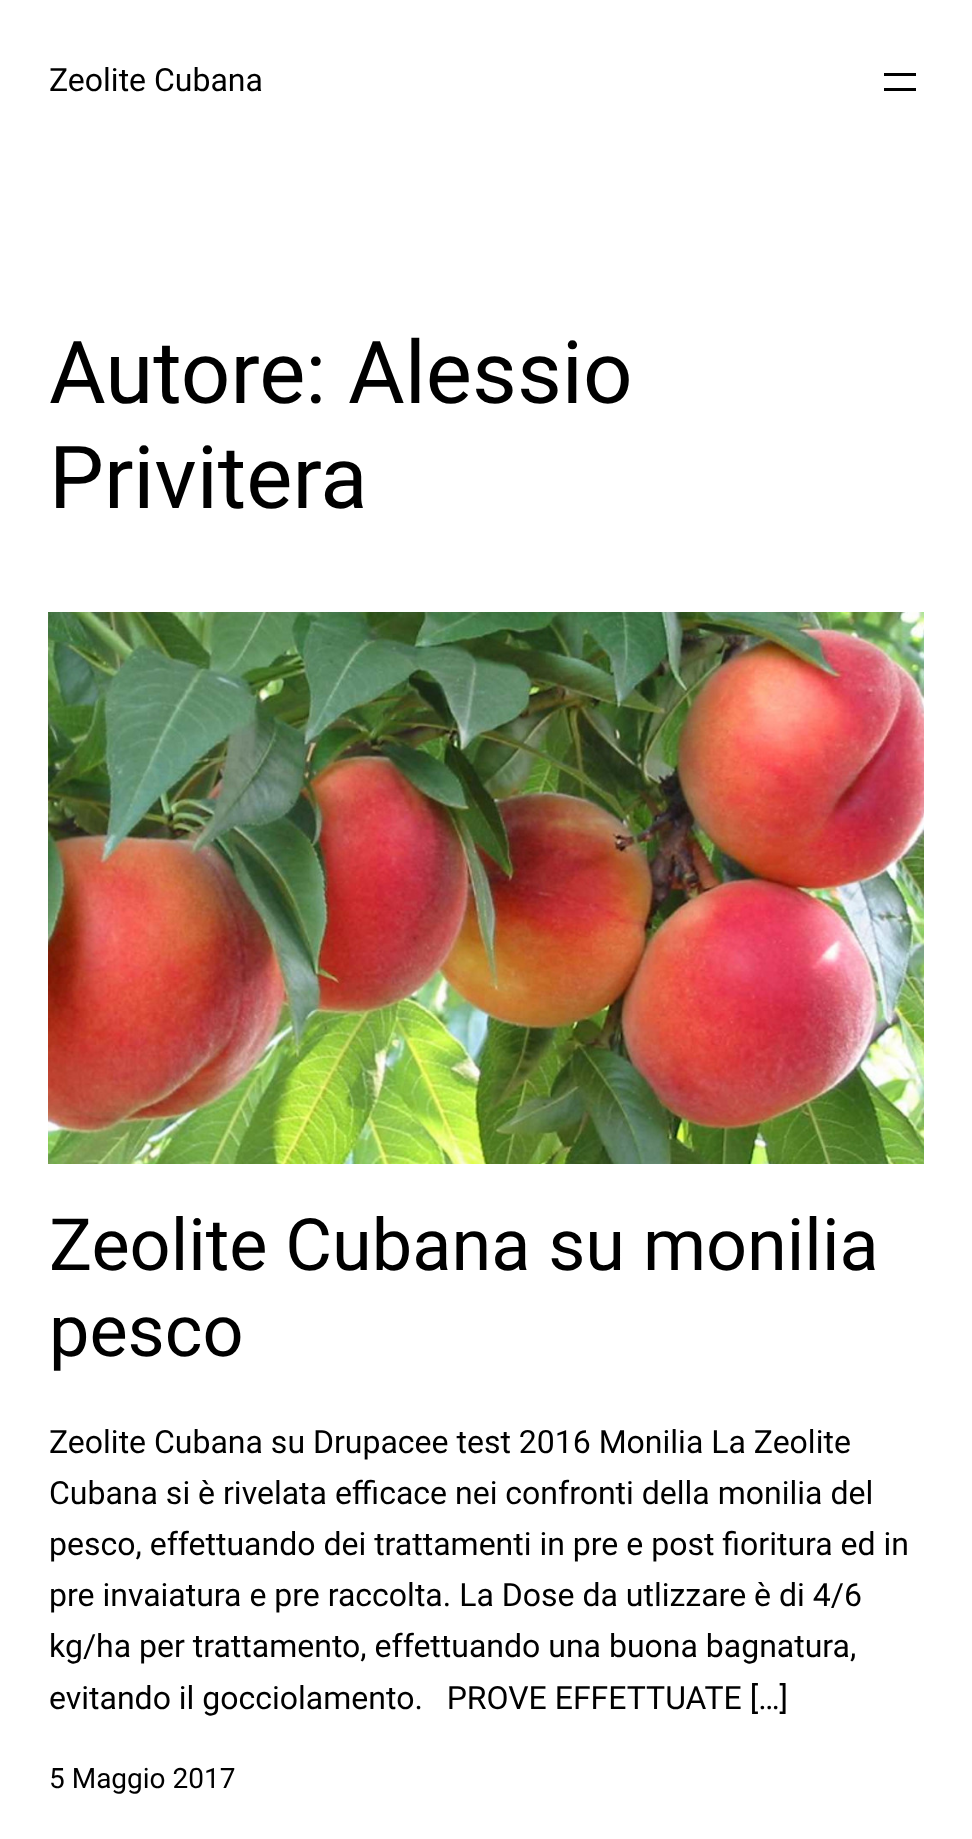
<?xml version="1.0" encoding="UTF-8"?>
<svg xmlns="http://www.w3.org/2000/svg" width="972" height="1839">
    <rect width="100%" height="100%" fill="#FFFFFF"/>
    <text x="49" y="91" font-family="Roboto" font-size="32" fill="#000000">Zeolite Cubana</text>
    <rect x="884" y="73" width="32" height="3" fill="#000000"/>
    <rect x="884" y="88" width="32" height="3" fill="#000000"/>
    <text font-family="Roboto" font-size="87" fill="#000000">
        <tspan x="49" y="403">Autore: Alessio</tspan>
        <tspan x="49" y="508">Privitera</tspan>
    </text>
    <image x="48" y="612" width="876" height="552" href="img_01.png"/>
    <text font-family="Roboto" font-size="72" fill="#000000">
        <tspan x="49" y="1270">Zeolite Cubana su monilia</tspan>
        <tspan x="49" y="1356">pesco</tspan>
    </text>
    <text font-family="Roboto" font-size="32" fill="#000000" xml:space="preserve"><tspan x="49" y="1453">Zeolite Cubana su Drupacee test 2016 Monilia La Zeolite</tspan><tspan x="49" y="1504">Cubana si è rivelata efficace nei confronti della monilia del</tspan><tspan x="49" y="1555">pesco, effettuando dei trattamenti in pre e post fioritura ed in</tspan><tspan x="49" y="1606">pre invaiatura e pre raccolta. La Dose da utlizzare è di 4/6</tspan><tspan x="49" y="1657">kg/ha per trattamento, effettuando una buona bagnatura,</tspan><tspan x="49" y="1709">evitando il gocciolamento.   PROVE EFFETTUATE […]</tspan></text>
    <text x="49" y="1788" font-family="Roboto" font-size="28" fill="#000000">5 Maggio 2017</text>
</svg>
